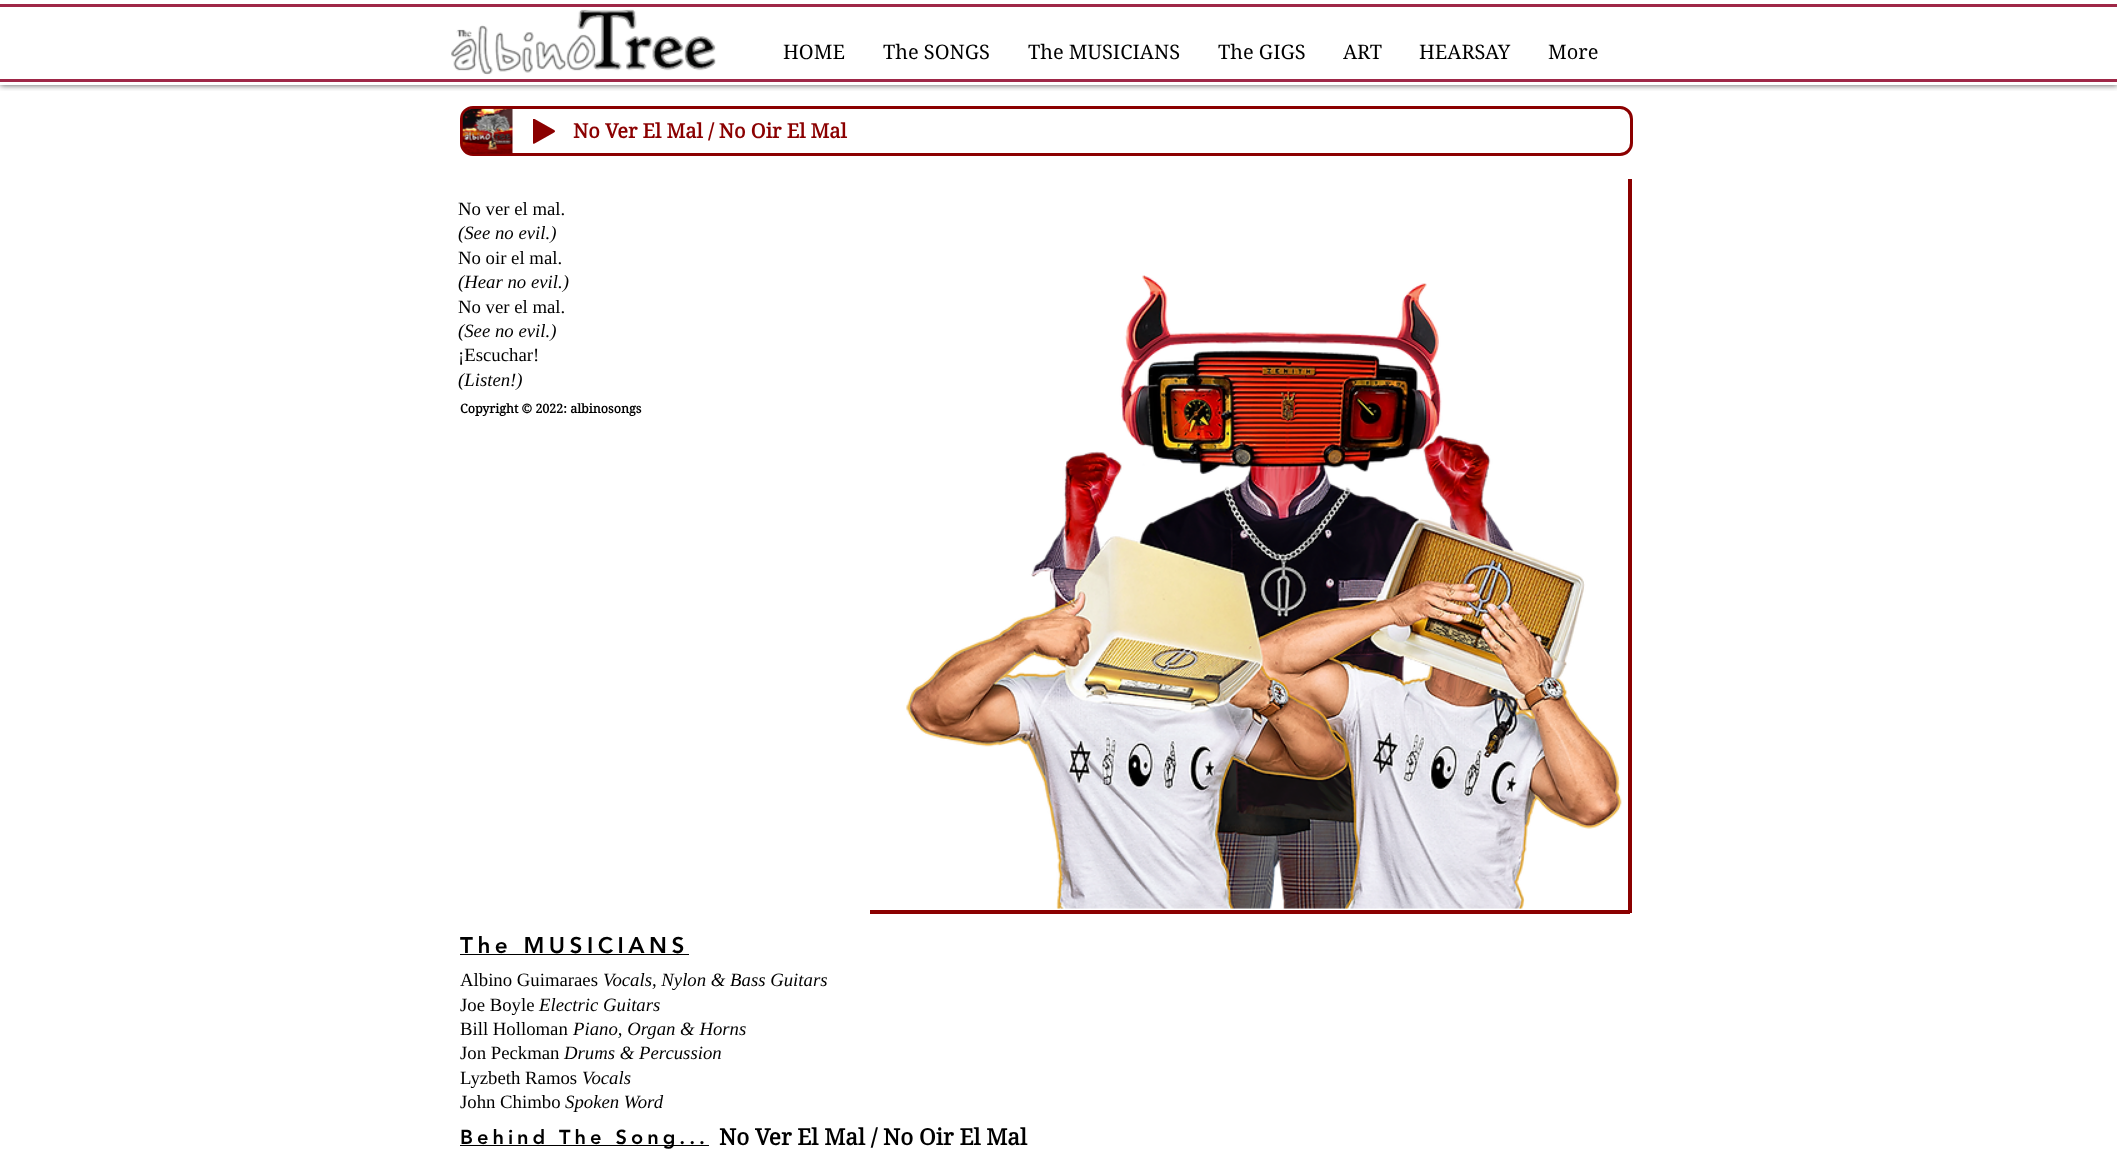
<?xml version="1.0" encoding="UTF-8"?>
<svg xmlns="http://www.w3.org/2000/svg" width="2117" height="1172">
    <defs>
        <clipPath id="clip1"><rect x="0" y="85" width="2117" height="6"/></clipPath>
        <filter id="blur1" x="-50%" y="-200%" width="200%" height="500%"><feGaussianBlur stdDeviation="3"/></filter>
    </defs>
    <rect width="100%" height="100%" fill="#FFFFFF"/>
    <g clip-path="url(#clip1)">
        <rect x="0" y="0" width="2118" height="85" fill="#000000" fill-opacity="0.7" filter="url(#blur1)"/>
    </g>
    <rect x="0" y="4" width="2117" height="3" fill="#9F2747"/>
    <rect x="0" y="79" width="2117" height="3" fill="#9F2747"/>
    <image x="451" y="9" width="265" height="66" href="img_01.png"/>
    <text x="783" y="59" font-family="'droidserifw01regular'" font-size="20" fill="#000000">HOME</text>
    <text x="883" y="59" font-family="'droidserifw01regular'" font-size="20" fill="#000000">The SONGS</text>
    <text x="1028" y="59" font-family="'droidserifw01regular'" font-size="20" fill="#000000">The MUSICIANS</text>
    <text x="1218" y="59" font-family="'droidserifw01regular'" font-size="20" fill="#000000">The GIGS</text>
    <text x="1343" y="59" font-family="'droidserifw01regular'" font-size="20" fill="#000000">ART</text>
    <text x="1419" y="59" font-family="'droidserifw01regular'" font-size="20" fill="#000000">HEARSAY</text>
    <text x="1548" y="59" font-family="'droidserifw01regular'" font-size="20" fill="#000000">More</text>
    <rect x="461.5" y="107.5" width="1170" height="47" rx="11.5" fill="none" stroke="#8B0000" stroke-width="3"/>
    <image x="462" y="108" width="51" height="46" href="img_02.png"/>
    <image x="533" y="119" width="22" height="25" href="img_03.png"/>
    <text x="573" y="138" font-family="'droidserifw01regular'" font-size="20" font-weight="700" fill="#8B0000">No Ver El Mal / No Oir El Mal</text>
    <text x="458" y="215" font-family="Liberation Serif" font-size="18.75" fill="#000000">No ver el mal.</text>
    <text x="458" y="239" font-family="Liberation Serif" font-size="18.75" font-style="italic" fill="#000000">(See no evil.)</text>
    <text x="458" y="264" font-family="Liberation Serif" font-size="18.75" fill="#000000">No oir el mal.</text>
    <text x="458" y="288" font-family="Liberation Serif" font-size="18.75" font-style="italic" fill="#000000">(Hear no evil.)</text>
    <text x="458" y="313" font-family="Liberation Serif" font-size="18.75" fill="#000000">No ver el mal.</text>
    <text x="458" y="337" font-family="Liberation Serif" font-size="18.75" font-style="italic" fill="#000000">(See no evil.)</text>
    <text x="458" y="361" font-family="Liberation Serif" font-size="18.75" fill="#000000">¡Escuchar!</text>
    <text x="458" y="386" font-family="Liberation Serif" font-size="18.75" font-style="italic" fill="#000000">(Listen!)</text>
    <image x="906" y="275" width="716" height="634" href="img_04.png"/>
    <rect x="1628" y="179" width="4" height="734" fill="#8B0000"/>
    <rect x="870" y="910" width="760" height="4" fill="#8B0000"/>
    <text x="460" y="413" font-family="'droidserifw01regular'" font-size="12.5" font-weight="700" fill="#000000">Copyright © 2022: albinosongs</text>
    <text x="460" y="953" font-family="'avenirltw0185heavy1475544'" font-size="22.5" font-weight="900" letter-spacing="4.5" fill="#000000">The MUSICIANS</text>
    <rect x="460" y="954" width="229" height="1" fill="#000000"/>
    <text x="460" y="986" font-family="Liberation Serif" font-size="18.75" fill="#000000">Albino Guimaraes</text>
    <text x="603" y="986" font-family="Liberation Serif" font-size="18.75" font-style="italic" fill="#000000">Vocals, Nylon &amp; Bass Guitars</text>
    <text x="460" y="1011" font-family="Liberation Serif" font-size="18.75" fill="#000000">Joe Boyle</text>
    <text x="539" y="1011" font-family="Liberation Serif" font-size="18.75" font-style="italic" fill="#000000">Electric Guitars</text>
    <text x="460" y="1035" font-family="Liberation Serif" font-size="18.75" fill="#000000">Bill Holloman</text>
    <text x="573" y="1035" font-family="Liberation Serif" font-size="18.75" font-style="italic" fill="#000000">Piano, Organ &amp; Horns</text>
    <text x="460" y="1059" font-family="Liberation Serif" font-size="18.75" fill="#000000">Jon Peckman</text>
    <text x="564" y="1059" font-family="Liberation Serif" font-size="18.75" font-style="italic" fill="#000000">Drums &amp; Percussion</text>
    <text x="460" y="1084" font-family="Liberation Serif" font-size="18.75" fill="#000000">Lyzbeth Ramos</text>
    <text x="582" y="1084" font-family="Liberation Serif" font-size="18.75" font-style="italic" fill="#000000">Vocals</text>
    <text x="460" y="1108" font-family="Liberation Serif" font-size="18.75" fill="#000000">John Chimbo</text>
    <text x="565" y="1108" font-family="Liberation Serif" font-size="18.75" font-style="italic" fill="#000000">Spoken Word</text>
    <rect x="460" y="1145" width="249" height="1" fill="#000000"/>
    <text x="460" y="1144" font-family="'avenirltw0185heavy1475544'" font-size="20" font-weight="900" letter-spacing="4" fill="#000000">Behind The Song...</text>
    <text x="719" y="1145" font-family="'droidserifw01regular'" font-size="22.5" font-weight="700" fill="#000000">No Ver El Mal / No Oir El Mal</text>
</svg>
